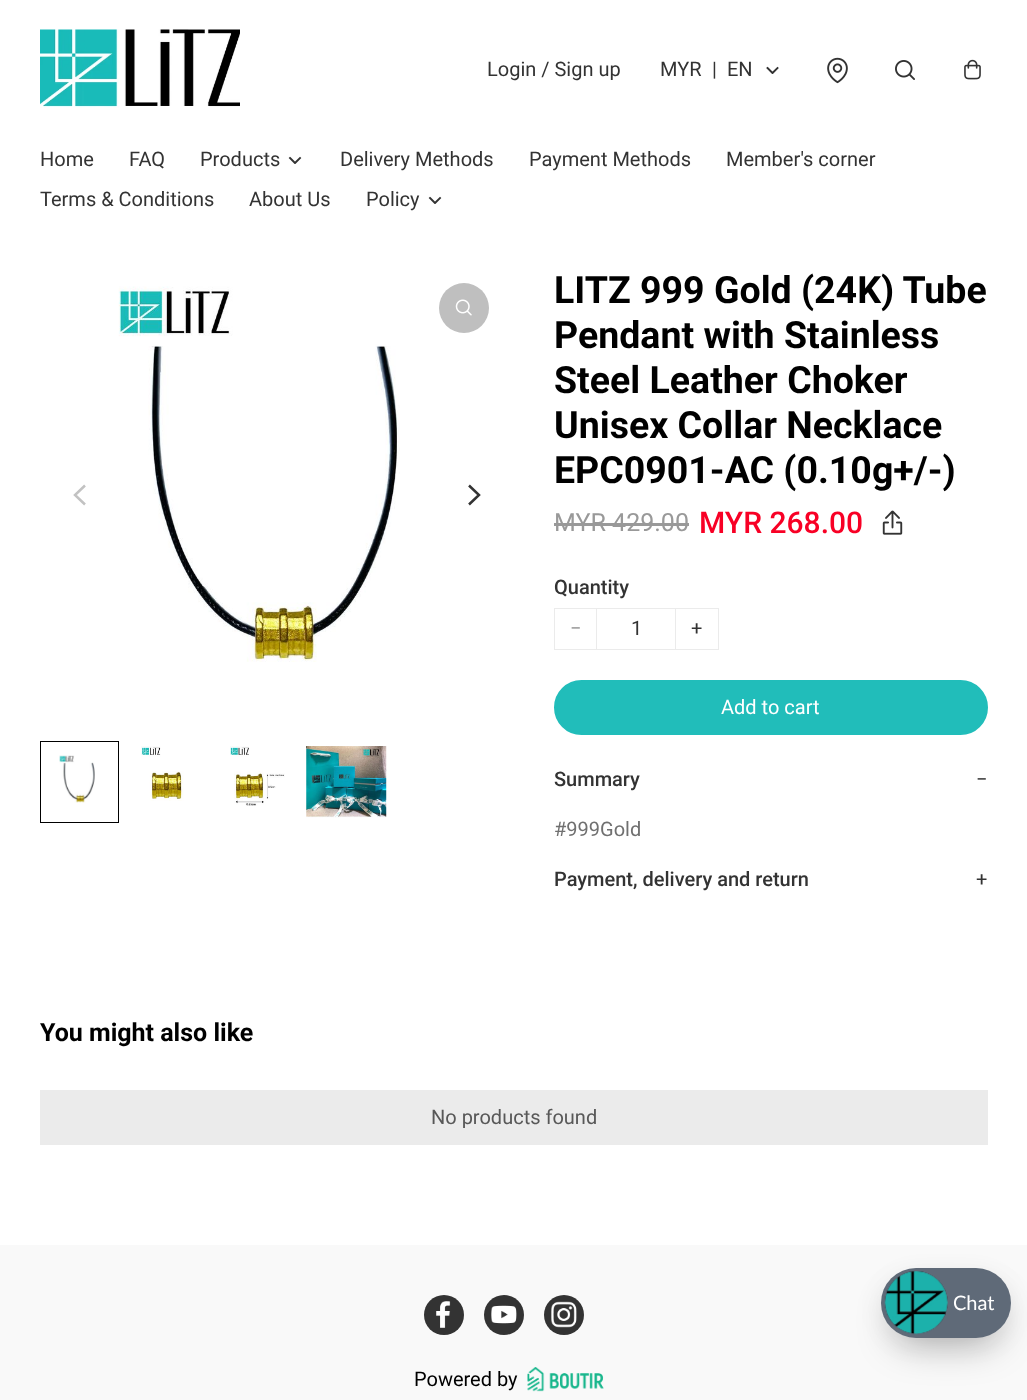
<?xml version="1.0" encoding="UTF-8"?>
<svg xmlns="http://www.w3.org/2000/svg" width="1027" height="1400">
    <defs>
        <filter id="blur1" x="-50%" y="-200%" width="200%" height="500%"><feGaussianBlur stdDeviation="19"/></filter>
        <filter id="blur2" x="-50%" y="-200%" width="200%" height="500%"><feGaussianBlur stdDeviation="12.5"/></filter>
    </defs>
    <rect width="100%" height="100%" fill="#FFFFFF"/>
    <image x="40" y="29" width="200" height="79" href="img_01.png"/>
    <text x="487" y="76" font-family="Roboto" font-size="20" fill="#333333">Login / Sign up</text>
    <text x="660" y="76" font-family="Roboto" font-size="20" fill="#333333">MYR</text>
    <text x="712" y="76" font-family="Roboto" font-size="20" fill="#333333">|</text>
    <text x="727" y="76" font-family="Roboto" font-size="20" fill="#333333">EN</text>
    <path d="M 767.5 68 L 772.5 73 L 777.5 68" fill="none" stroke="#333333" stroke-width="1.9" stroke-linecap="square" stroke-linejoin="round"/>
    <image x="827" y="57" width="21" height="27" href="img_02.png"/>
    <image x="895" y="60" width="20" height="20" href="img_03.png"/>
    <image x="964" y="59" width="17" height="21" href="img_04.png"/>
    <text x="40" y="166" font-family="Roboto" font-size="20" fill="#333333">Home</text>
    <text x="129" y="166" font-family="Roboto" font-size="20" fill="#333333">FAQ</text>
    <text x="200" y="166" font-family="Roboto" font-size="20" fill="#333333">Products</text>
    <path d="M 290 158 L 295 163 L 300 158" fill="none" stroke="#333333" stroke-width="1.9" stroke-linecap="square" stroke-linejoin="round"/>
    <text x="340" y="166" font-family="Roboto" font-size="20" fill="#333333">Delivery Methods</text>
    <text x="529" y="166" font-family="Roboto" font-size="20" fill="#333333">Payment Methods</text>
    <text x="726" y="166" font-family="Roboto" font-size="20" fill="#333333">Member's corner</text>
    <text x="40" y="206" font-family="Roboto" font-size="20" fill="#333333">Terms &amp; Conditions</text>
    <text x="249" y="206" font-family="Roboto" font-size="20" fill="#333333">About Us</text>
    <text x="366" y="206" font-family="Roboto" font-size="20" fill="#333333">Policy</text>
    <path d="M 430 198 L 435 203 L 440 198" fill="none" stroke="#333333" stroke-width="1.9" stroke-linecap="square" stroke-linejoin="round"/>
    <path d="M 85 485.5 L 75 495 L 85 504.5" fill="none" stroke="#C2C2C2" stroke-width="2.5"/>
    <image x="118" y="286" width="282" height="376" href="img_05.png"/>
    <circle cx="464" cy="308" r="25" fill="#BFBFBF"/>
    <image x="455" y="299" width="17" height="17" href="img_06.png"/>
    <path d="M 469 485.5 L 479 495 L 469 504.5" fill="none" stroke="#333333" stroke-width="2.5"/>
    <rect x="40.5" y="741.5" width="78" height="81" fill="none" stroke="#000000"/>
    <image x="59" y="755" width="36" height="48" href="img_07.png"/>
    <image x="141" y="746" width="43" height="55" href="img_08.png"/>
    <image x="230" y="746" width="55" height="60" href="img_09.png"/>
    <image x="306" y="746" width="81" height="72" href="img_10.png"/>
    <text font-family="Roboto" font-size="37.5" font-weight="700" fill="#000000">
        <tspan x="554" y="303">LITZ 999 Gold (24K) Tube</tspan>
        <tspan x="554" y="348">Pendant with Stainless</tspan>
        <tspan x="554" y="393">Steel Leather Choker</tspan>
        <tspan x="554" y="438">Unisex Collar Necklace</tspan>
        <tspan x="554" y="483">EPC0901-AC (0.10g+/-)</tspan>
    </text>
    <text x="554" y="531" font-family="Roboto" font-size="25" fill="#999999">MYR 429.00</text>
    <rect x="554" y="523" width="135" height="3" fill="#999999"/>
    <text x="699" y="533" font-family="Roboto" font-size="30" font-weight="500" fill="#F80025">MYR 268.00</text>
    <image x="882" y="510" width="21" height="25" href="img_11.png"/>
    <text x="554" y="594" font-family="Roboto" font-size="20" font-weight="500" fill="#333333">Quantity</text>
    <rect x="554.5" y="608.5" width="164" height="41" fill="none" stroke="#EBEBEB"/>
    <text x="570" y="635" font-family="Roboto" font-size="20" fill="#999999">−</text>
    <rect x="675" y="609" width="1" height="40" fill="#EBEBEB"/>
    <rect x="596" y="609" width="1" height="40" fill="#EBEBEB"/>
    <text x="631" y="635" font-family="Roboto" font-size="20" fill="#333333">1</text>
    <text x="691" y="635" font-family="Roboto" font-size="20" fill="#333333">+</text>
    <rect x="555.5" y="681.5" width="431" height="52" rx="26" fill="#21BDBA" stroke="#21BDBA" stroke-width="3"/>
    <text x="721" y="714" font-family="Roboto" font-size="20" fill="#FFFFFF">Add to cart</text>
    <text x="554" y="786" font-family="Roboto" font-size="20" font-weight="500" fill="#333333">Summary</text>
    <text x="976" y="786" font-family="Roboto" font-size="20" fill="#333333">−</text>
    <text x="554" y="836" font-family="Roboto" font-size="20" fill="#707070">#999Gold</text>
    <text x="554" y="886" font-family="Roboto" font-size="20" font-weight="500" fill="#333333">Payment, delivery and return</text>
    <text x="976" y="886" font-family="Roboto" font-size="20" fill="#333333">+</text>
    <text x="40" y="1041" font-family="Roboto" font-size="25" font-weight="700" fill="#000000">You might also like</text>
    <rect x="40" y="1090" width="948" height="55" fill="#EBEBEB"/>
    <text x="431" y="1124" font-family="Roboto" font-size="20" fill="#585858">No products found</text>
    <rect x="0" y="1245" width="1027" height="155" fill="#F9F9F9"/>
    <circle cx="444" cy="1315" r="20" fill="#333333"/>
    <image x="436" y="1301" width="15" height="27" href="img_12.png"/>
    <circle cx="504" cy="1315" r="20" fill="#333333"/>
    <image x="491" y="1305" width="26" height="19" href="img_13.png"/>
    <circle cx="564" cy="1315" r="20" fill="#333333"/>
    <image x="551" y="1301" width="26" height="27" href="img_14.png"/>
    <text x="414" y="1386" font-family="Roboto" font-size="20" fill="#000000">Powered by</text>
    <image x="527" y="1367" width="77" height="25" href="img_15.png"/>
    <rect x="894" y="1299" width="105" height="45" rx="22.5" fill="#000000" fill-opacity="0.3" filter="url(#blur1)"/>
    <rect x="881" y="1274" width="130" height="70" rx="35" fill="#000000" fill-opacity="0.05" filter="url(#blur2)"/>
    <rect x="881" y="1268" width="130" height="70" rx="35" fill="#5F6A78"/>
    <image x="884" y="1271" width="64" height="64" href="img_16.png"/>
    <text x="953" y="1310" font-family="Lato" font-size="20" fill="#FFFFFF">Chat</text>
</svg>
